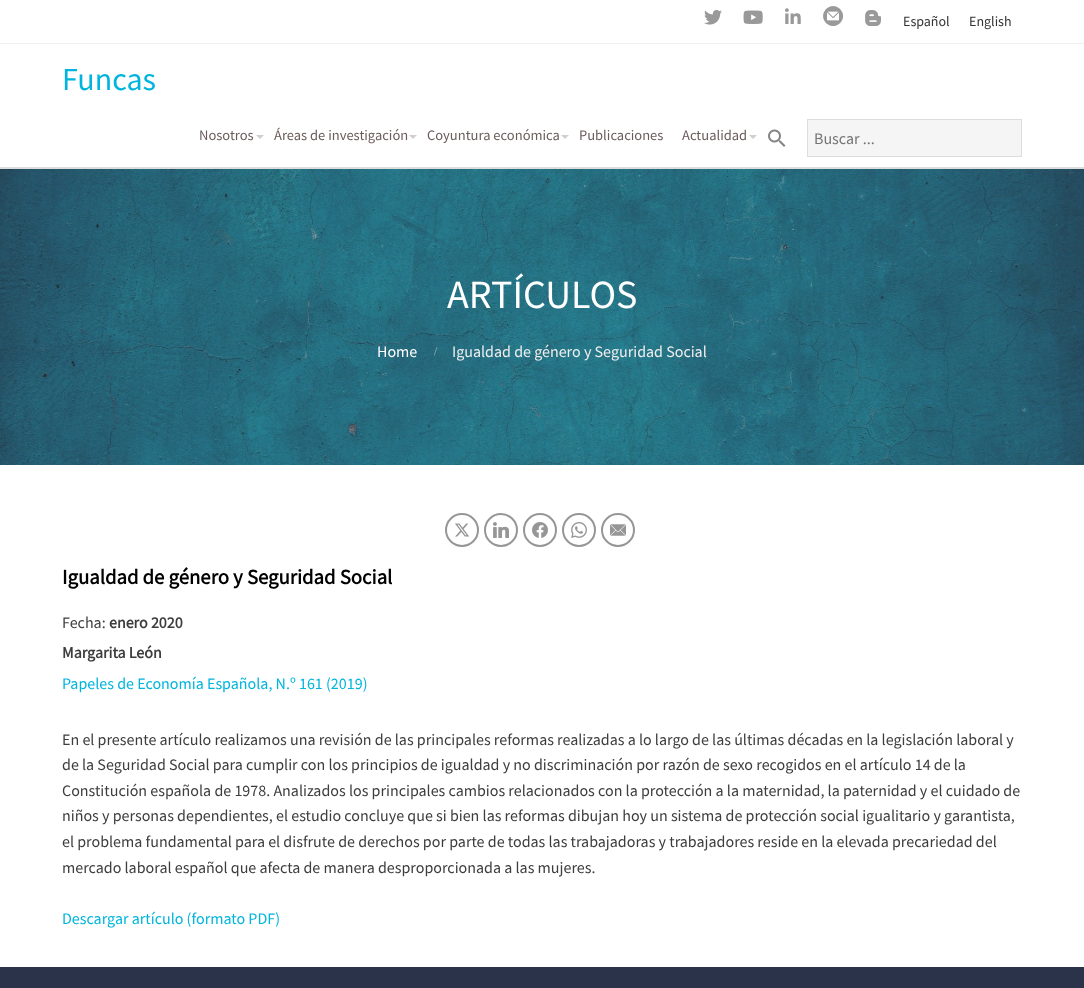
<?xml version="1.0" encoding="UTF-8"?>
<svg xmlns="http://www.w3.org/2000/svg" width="1084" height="988">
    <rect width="100%" height="100%" fill="#FFFFFF"/>
    <rect x="0" y="43" width="1084" height="1" fill="#F0F0F0"/>
    <image x="704" y="10" width="18" height="15" href="img_01.png"/>
    <image x="743" y="10" width="20" height="14" href="img_02.png"/>
    <image x="785" y="8" width="16" height="16" href="img_03.png"/>
    <image x="823" y="6" width="20" height="20" href="img_04.png"/>
    <image x="865" y="10" width="16" height="16" href="img_05.png"/>
    <text x="903" y="26" font-family="Source Sans Pro" font-size="14" fill="#333333">Español</text>
    <text x="969" y="26" font-family="Source Sans Pro" font-size="14" fill="#333333">English</text>
    <rect x="0" y="167" width="1084" height="2" fill="#DDDDDD"/>
    <text x="62" y="90" font-family="Source Sans Pro" font-size="32" fill="#00B5DD">Funcas</text>
    <text x="199" y="140" font-family="Source Sans Pro" font-size="14.5" fill="#6B5C5C">Nosotros</text>
    <path d="M 256 135 H 264 L 260 139 Z" fill="#CFCFCF"/>
    <text x="274" y="140" font-family="Source Sans Pro" font-size="14.5" fill="#6B5C5C">Áreas de investigación</text>
    <path d="M 409 135 H 417 L 413 139 Z" fill="#CFCFCF"/>
    <text x="427" y="140" font-family="Source Sans Pro" font-size="14.5" fill="#6B5C5C">Coyuntura económica</text>
    <path d="M 561 135 H 569 L 565 139 Z" fill="#CFCFCF"/>
    <text x="579" y="140" font-family="Source Sans Pro" font-size="14.5" fill="#6B5C5C">Publicaciones</text>
    <text x="682" y="140" font-family="Source Sans Pro" font-size="14.5" fill="#6B5C5C">Actualidad</text>
    <path d="M 749 135 H 757 L 753 139 Z" fill="#CFCFCF"/>
    <image x="768" y="129" width="18" height="18" href="img_06.png"/>
    <rect x="807.5" y="119.5" width="214" height="37" fill="#F5F5F5" stroke="#DDDDDD"/>
    <text x="814" y="144" font-family="Source Sans Pro" font-size="16" fill="#757575">Buscar ...</text>
    <image x="0" y="169" width="1084" height="296" href="img_07.png"/>
    <text x="447" y="308" font-family="Source Sans Pro" font-size="40" fill="#FFFFFF">ARTÍCULOS</text>
    <text x="377" y="357" font-family="Source Sans Pro" font-size="16" fill="#FFFFFF">Home</text>
    <text x="434" y="355" font-family="Liberation Serif" font-size="12" font-weight="700" fill="#81A3AC">/</text>
    <text x="452" y="357" font-family="Source Sans Pro" font-size="16" fill="#EEEEEE">Igualdad de género y Seguridad Social</text>
    <circle cx="462" cy="530" r="16" fill="none" stroke="#969696" stroke-width="2"/>
    <image x="455" y="523" width="15" height="14" href="img_08.png"/>
    <circle cx="501" cy="530" r="16" fill="none" stroke="#969696" stroke-width="2"/>
    <image x="493" y="522" width="16" height="16" href="img_09.png"/>
    <circle cx="540" cy="530" r="16" fill="none" stroke="#969696" stroke-width="2"/>
    <image x="532" y="522" width="16" height="16" href="img_10.png"/>
    <circle cx="579" cy="530" r="16" fill="none" stroke="#969696" stroke-width="2"/>
    <image x="571" y="522" width="16" height="16" href="img_11.png"/>
    <circle cx="618" cy="530" r="16" fill="none" stroke="#969696" stroke-width="2"/>
    <image x="610" y="524" width="16" height="12" href="img_12.png"/>
    <text x="62" y="584" font-family="Source Sans Pro" font-size="20.75" font-weight="700" fill="#000000">Igualdad de género y Seguridad Social</text>
    <text x="62" y="628" font-family="Source Sans Pro" font-size="16" fill="#3D3D3D">Fecha:</text>
    <text x="109" y="628" font-family="Source Sans Pro" font-size="16" font-weight="700" fill="#3D3D3D">enero 2020</text>
    <text x="62" y="658" font-family="Source Sans Pro" font-size="16" font-weight="700" fill="#3D3D3D">Margarita León</text>
    <text x="62" y="689" font-family="Source Sans Pro" font-size="16" fill="#00B5DD">Papeles de Economía Española, N.º 161 (2019)</text>
    <text font-family="Source Sans Pro" font-size="16" fill="#3D3D3D">
        <tspan x="62" y="745">En el presente artículo realizamos una revisión de las principales reformas realizadas a lo largo de las últimas décadas en la legislación laboral y</tspan>
        <tspan x="62" y="770">de la Seguridad Social para cumplir con los principios de igualdad y no discriminación por razón de sexo recogidos en el artículo 14 de la</tspan>
        <tspan x="62" y="796">Constitución española de 1978. Analizados los principales cambios relacionados con la protección a la maternidad, la paternidad y el cuidado de</tspan>
        <tspan x="62" y="821">niños y personas dependientes, el estudio concluye que si bien las reformas dibujan hoy un sistema de protección social igualitario y garantista,</tspan>
        <tspan x="62" y="847">el problema fundamental para el disfrute de derechos por parte de todas las trabajadoras y trabajadores reside en la elevada precariedad del</tspan>
        <tspan x="62" y="873">mercado laboral español que afecta de manera desproporcionada a las mujeres.</tspan>
    </text>
    <text x="62" y="924" font-family="Source Sans Pro" font-size="16" fill="#00B5DD">Descargar artículo (formato PDF)</text>
    <rect x="0" y="967" width="1084" height="21" fill="#2A3349"/>
</svg>
